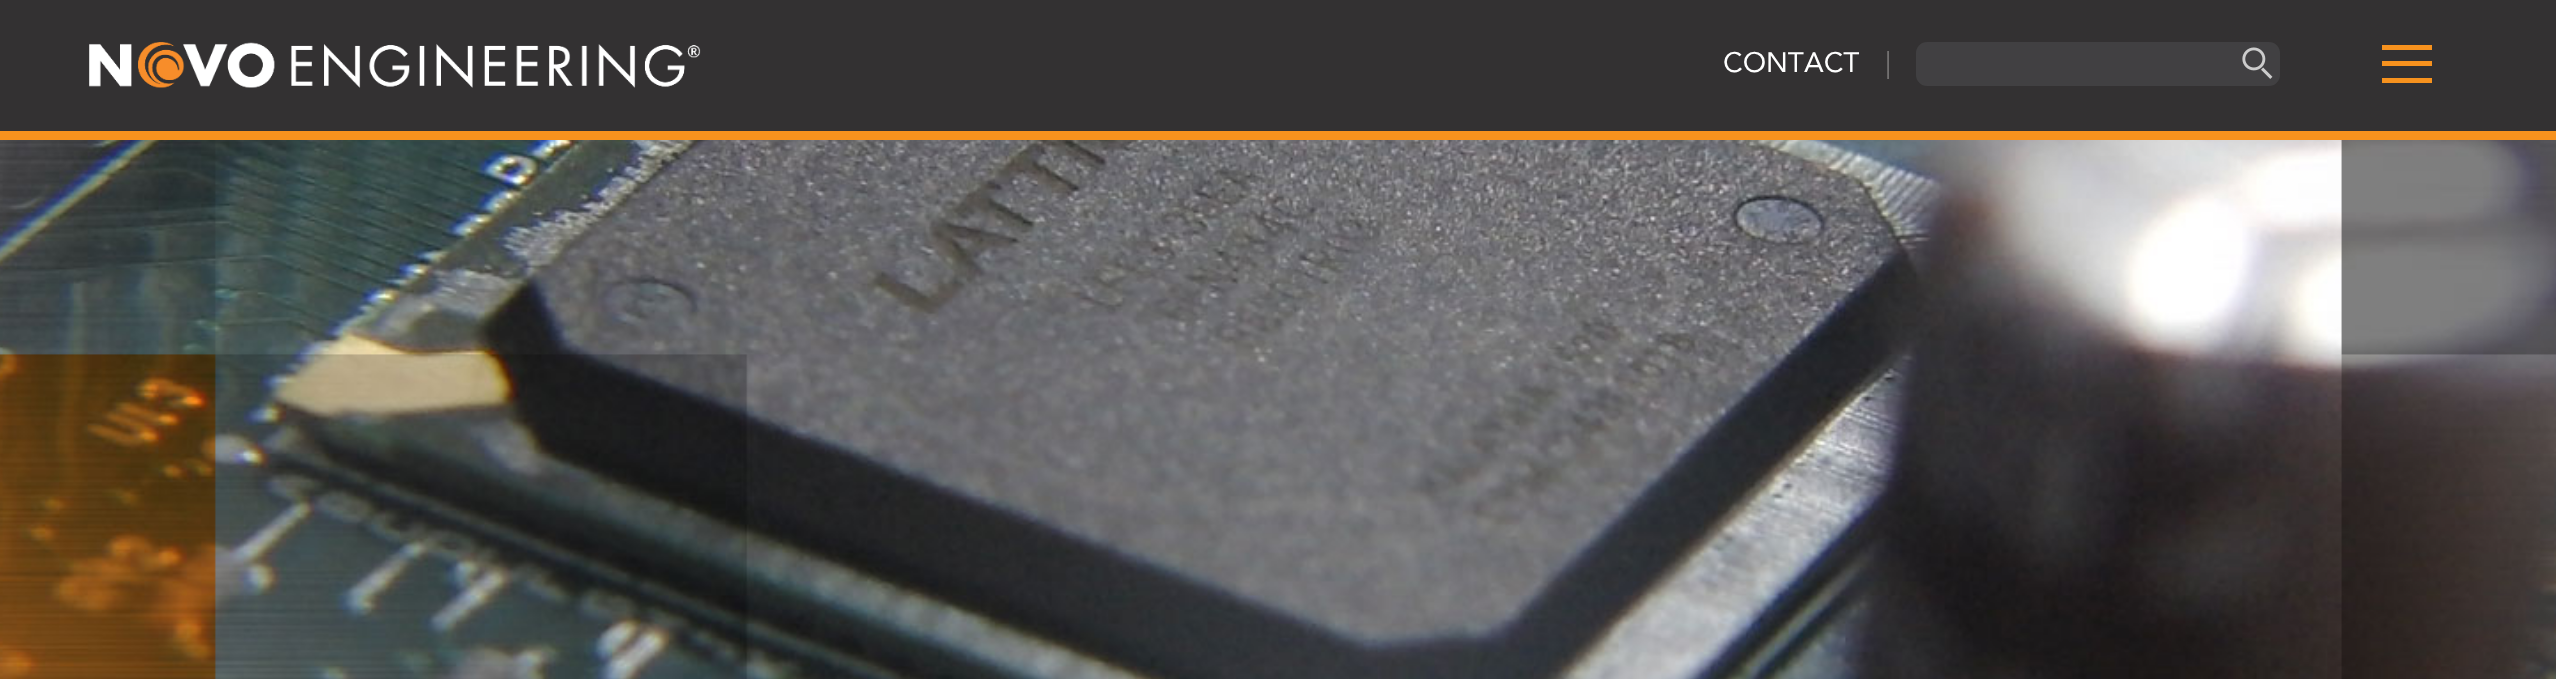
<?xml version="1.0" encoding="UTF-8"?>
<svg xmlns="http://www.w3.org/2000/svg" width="2556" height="679">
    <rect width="100%" height="100%" fill="#FFFFFF"/>
    <rect x="0" y="0" width="2556" height="131" fill="#333132"/>
    <rect x="0" y="131" width="2556" height="9" fill="#F7921E"/>
    <image x="89" y="42" width="612" height="46" href="img_01.png"/>
    <text x="1723" y="72" font-family="Avenir" font-size="28" fill="#FFFFFF">CONTACT</text>
    <text x="1885" y="72" font-family="Avenir" font-size="28" fill="#727070">|</text>
    <rect x="1916" y="42" width="364" height="44" rx="11" fill="#414042"/>
    <image x="2242" y="47" width="31" height="32" href="img_02.png"/>
    <path d="M 2382 45 H 2432 V 50 H 2382 Z M 2382 61 H 2432 V 66 H 2382 Z M 2382 78 H 2432 V 83 H 2382 Z" fill="#F7921E"/>
    <image x="0" y="140" width="2556" height="539" href="img_03.png"/>
</svg>
